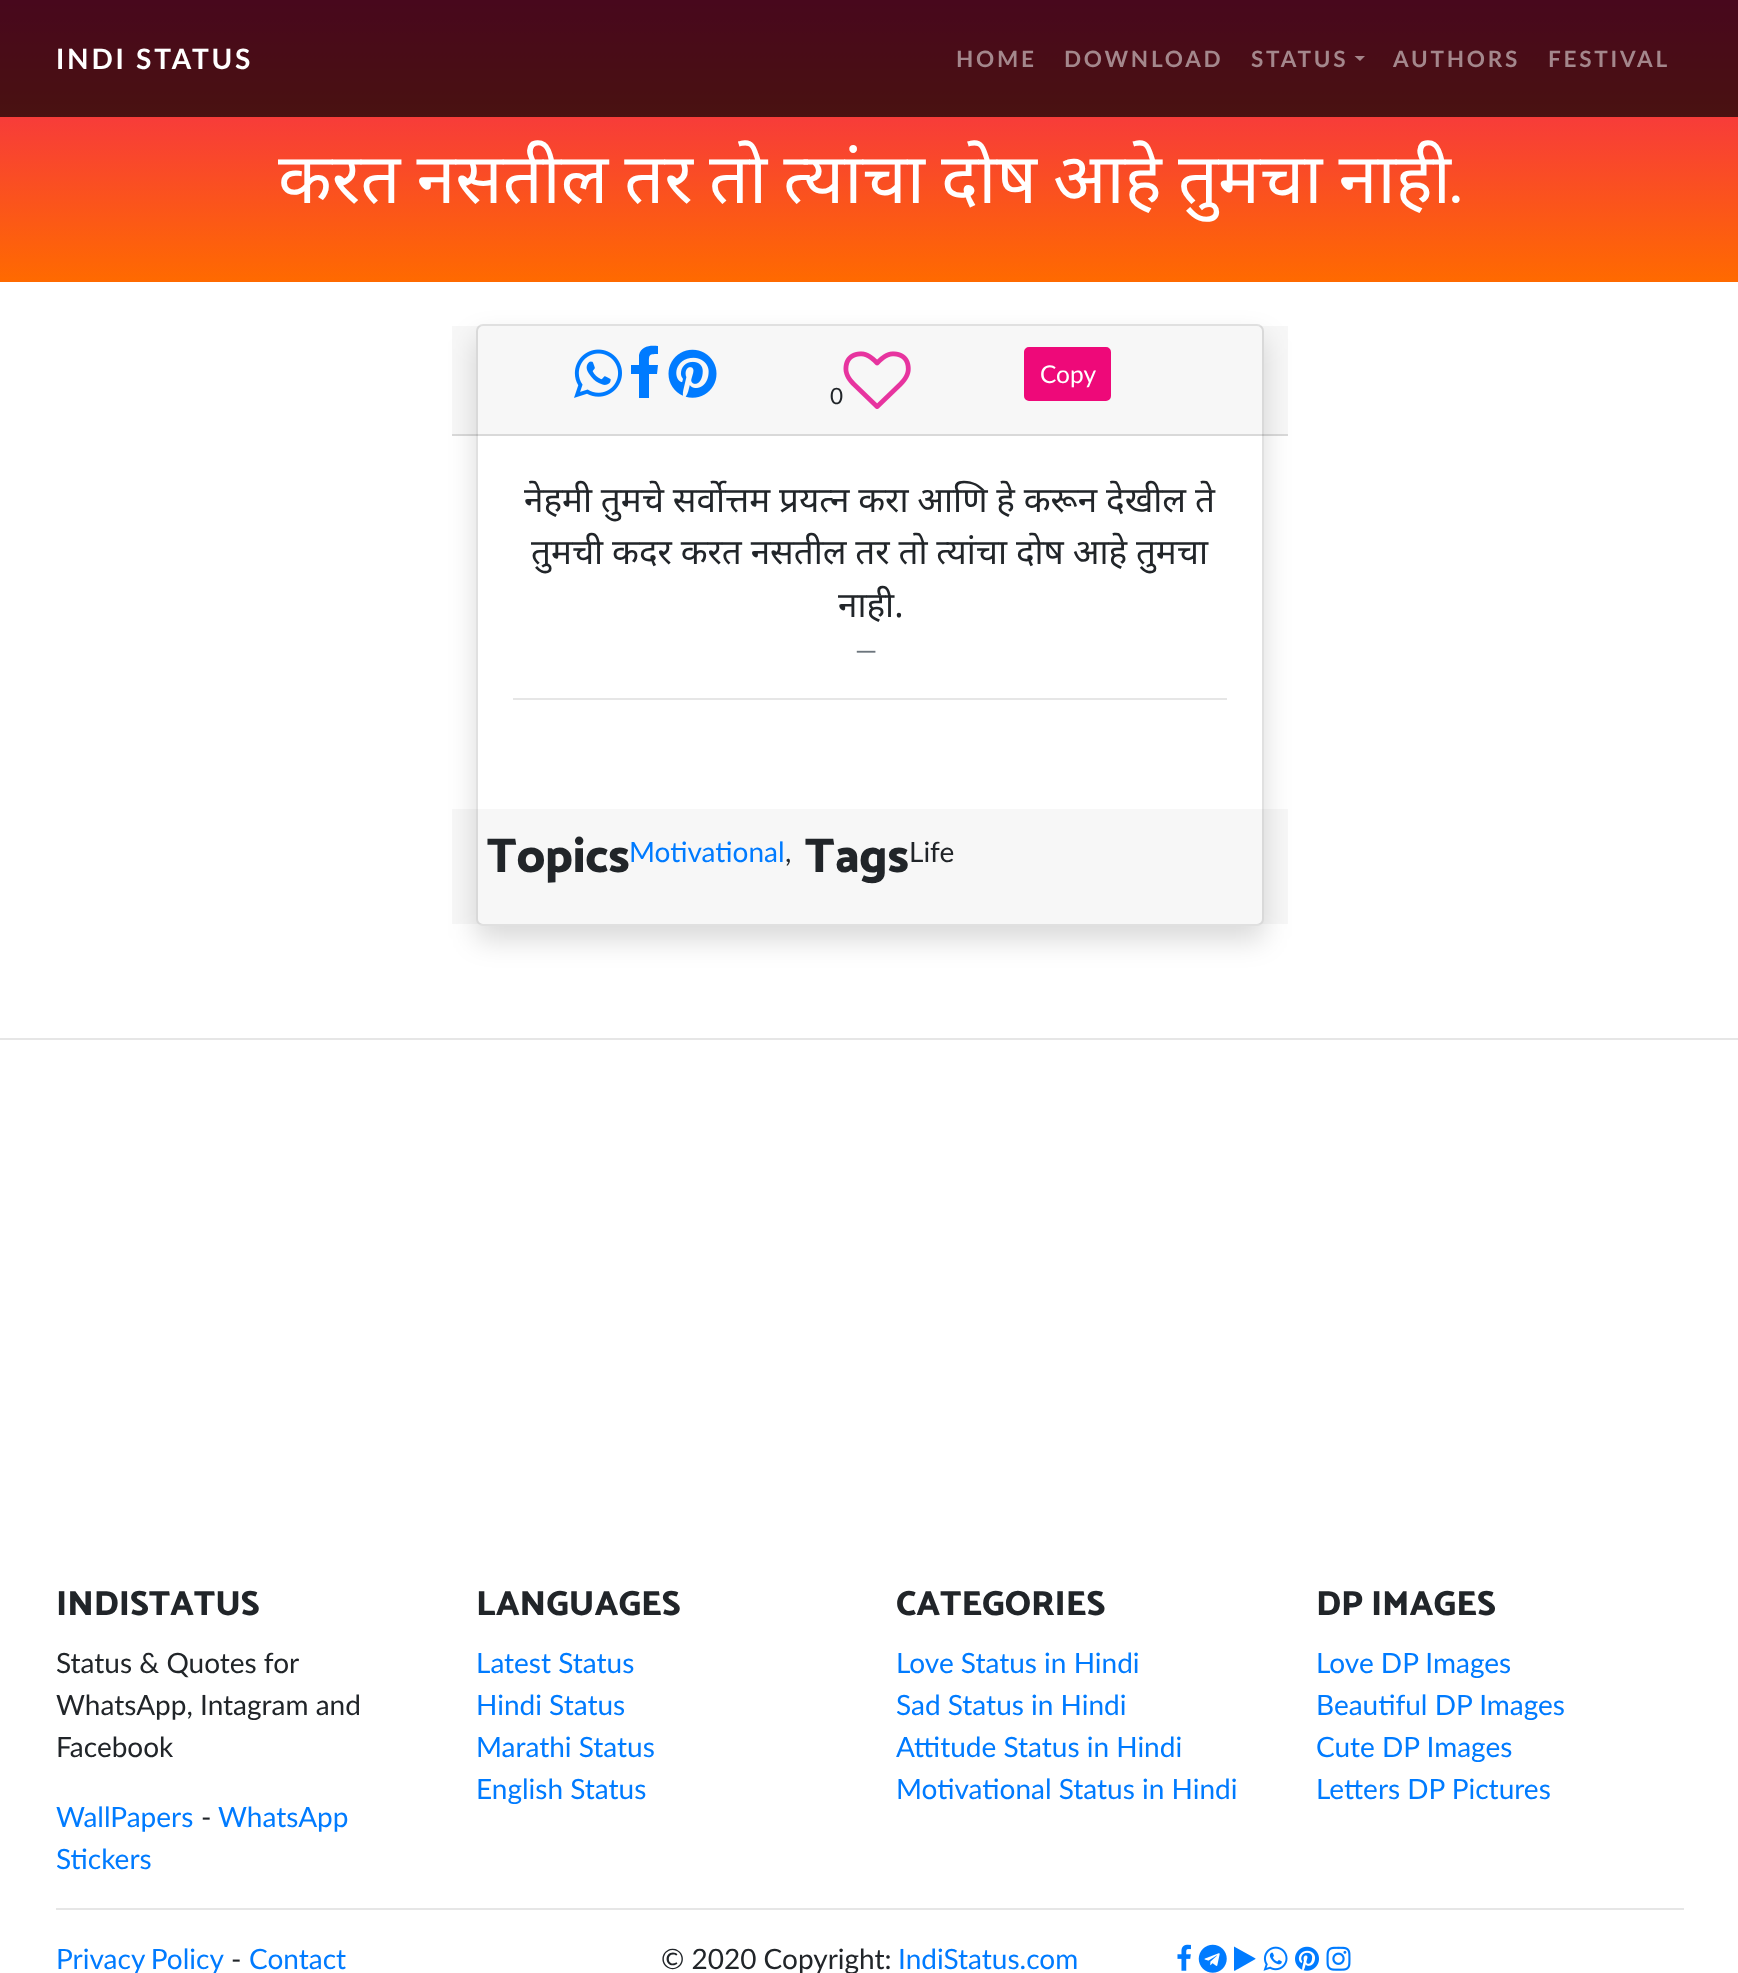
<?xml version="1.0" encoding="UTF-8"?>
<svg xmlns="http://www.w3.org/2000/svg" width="1738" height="1973">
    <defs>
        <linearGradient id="g1" gradientUnits="userSpaceOnUse" x1="870" y1="282" x2="870" y2="-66"><stop offset="0" stop-color="#FF6A00"/><stop offset="1" stop-color="#EE0979"/></linearGradient>
        <filter id="blur1" x="-50%" y="-200%" width="200%" height="500%"><feGaussianBlur stdDeviation="14"/></filter>
    </defs>
    <rect width="100%" height="100%" fill="#FFFFFF"/>
    <rect x="0" y="0" width="1738" height="282" fill="url(#g1)"/>
    <rect x="0" y="0" width="1738" height="117" fill="#000000" fill-opacity="0.7"/>
    <text x="56" y="69" font-family="Lato" font-size="28" font-weight="700" letter-spacing="2.75" fill="#FFFFFF">INDI STATUS</text>
    <text x="956" y="67" font-family="Lato" font-size="22.5" font-weight="700" letter-spacing="2.75" fill="#A4878C">HOME</text>
    <text x="1064" y="67" font-family="Lato" font-size="22.5" font-weight="700" letter-spacing="2.75" fill="#A4878C">DOWNLOAD</text>
    <text x="1251" y="67" font-family="Lato" font-size="22.5" font-weight="700" letter-spacing="2.75" fill="#A4878C">STATUS</text>
    <path d="M 1354.5 56 H 1365 L 1360 61 Z" fill="#A4868B"/>
    <text x="1393" y="67" font-family="Lato" font-size="22.5" font-weight="700" letter-spacing="2.75" fill="#A4878C">AUTHORS</text>
    <text x="1548" y="67" font-family="Lato" font-size="22.5" font-weight="700" letter-spacing="2.75" fill="#A4878C">FESTIVAL</text>
    <text x="278" y="203" word-spacing="-2" font-family="Noto Sans" font-size="70" fill="#FFFFFF">करत नसतील तर तो त्यांचा दोष आहे तुमचा नाही</text>
    <text x="1450" y="203" font-family="Catamaran" font-size="70" fill="#FFFFFF">.</text>
    <rect x="476" y="338" width="788" height="602" rx="7" fill="#000000" fill-opacity="0.15" filter="url(#blur1)"/>
    <rect x="476" y="324" width="788" height="602" rx="7" fill="#FFFFFF"/>
    <rect x="477" y="325" width="786" height="600" rx="6" fill="none" stroke="#000000" stroke-opacity="0.12" stroke-width="2"/>
    <rect x="452" y="326" width="836" height="110" fill="#000000" fill-opacity="0.03"/>
    <rect x="452" y="434" width="836" height="2" fill="#000000" fill-opacity="0.12"/>
    <image x="574" y="349" width="48" height="49" href="img_01.png"/>
    <path d="M 658 346 V 354 C 648 354 649 355 649 365 H 658 L 657 374 H 649 V 398 H 639 V 374 H 631 V 365 H 639 V 355 C 641 346 650 345 658 346 Z" fill="#007BFF"/>
    <image x="668" y="349" width="49" height="49" href="img_02.png"/>
    <rect x="1025" y="348" width="85" height="52" rx="4" fill="#EE0979" stroke="#EE0979" stroke-width="2"/>
    <text x="1040" y="383" font-family="Lato" font-size="24.5" fill="#FFFFFF">Copy</text>
    <text x="830" y="404" font-family="Lato" font-size="22.5" fill="#212529">0</text>
    <image x="843" y="351" width="68" height="58" href="img_03.png"/>
    <text x="524" y="512" word-spacing="-0.25" font-family="Noto Sans" font-size="35" fill="#212529">नेहमी तुमचे सर्वोत्तम प्रयत्न करा आणि हे करून देखील ते</text>
    <text x="531" y="564" word-spacing="-0.25" font-family="Noto Sans" font-size="35" fill="#212529">तुमची कदर करत नसतील तर तो त्यांचा दोष आहे तुमचा</text>
    <text x="838" y="617" font-family="Noto Sans" font-size="35" fill="#212529">नाही.</text>
    <text x="855" y="660" font-family="Lato" font-size="28" fill="#6C757D">—</text>
    <rect x="513" y="698" width="714" height="2" fill="#E6E6E6"/>
    <rect x="452" y="809" width="836" height="115" fill="#000000" fill-opacity="0.03"/>
    <text x="487" y="872" font-family="Catamaran" font-size="49" font-weight="800" fill="#212529">Topics</text>
    <text x="629" y="862" font-family="Lato" font-size="28" fill="#007BFF">Motivational</text>
    <text x="785" y="862" font-family="Lato" font-size="28" fill="#212529">,</text>
    <text x="805" y="872" font-family="Catamaran" font-size="49" font-weight="800" fill="#212529">Tags</text>
    <text x="909" y="862" font-family="Lato" font-size="28" fill="#212529">Life</text>
    <rect x="0" y="1038" width="1738" height="2" fill="#E6E6E6"/>
    <text x="56" y="1615" font-family="Catamaran" font-size="35" font-weight="800" fill="#212529">INDISTATUS</text>
    <text font-family="Lato" font-size="28" fill="#212529">
        <tspan x="56" y="1673">Status &amp; Quotes for</tspan>
        <tspan x="56" y="1715">WhatsApp, Intagram and</tspan>
        <tspan x="56" y="1757">Facebook</tspan>
    </text>
    <text x="56" y="1827" font-family="Lato" font-size="28" fill="#007BFF">WallPapers</text>
    <text x="201" y="1827" font-family="Lato" font-size="28" fill="#212529">-</text>
    <text x="218" y="1827" font-family="Lato" font-size="28" fill="#007BFF">WhatsApp</text>
    <text x="56" y="1869" font-family="Lato" font-size="28" fill="#007BFF">Stickers</text>
    <text x="476" y="1615" font-family="Catamaran" font-size="35" font-weight="800" fill="#212529">LANGUAGES</text>
    <text font-family="Lato" font-size="28" fill="#007BFF">
        <tspan x="476" y="1673">Latest Status</tspan>
        <tspan x="476" y="1715">Hindi Status</tspan>
        <tspan x="476" y="1757">Marathi Status</tspan>
        <tspan x="476" y="1799">English Status</tspan>
    </text>
    <text x="896" y="1615" font-family="Catamaran" font-size="35" font-weight="800" fill="#212529">CATEGORIES</text>
    <text font-family="Lato" font-size="28" fill="#007BFF">
        <tspan x="896" y="1673">Love Status in Hindi</tspan>
        <tspan x="896" y="1715">Sad Status in Hindi</tspan>
        <tspan x="896" y="1757">Attitude Status in Hindi</tspan>
        <tspan x="896" y="1799">Motivational Status in Hindi</tspan>
    </text>
    <text x="1316" y="1615" font-family="Catamaran" font-size="35" font-weight="800" fill="#212529">DP IMAGES</text>
    <text font-family="Lato" font-size="28" fill="#007BFF">
        <tspan x="1316" y="1673">Love DP Images</tspan>
        <tspan x="1316" y="1715">Beautiful DP Images</tspan>
        <tspan x="1316" y="1757">Cute DP Images</tspan>
        <tspan x="1316" y="1799">Letters DP Pictures</tspan>
    </text>
    <rect x="56" y="1908" width="1628" height="2" fill="#E6E6E6"/>
    <text x="56" y="1969" word-spacing="-1" font-family="Lato" font-size="28" fill="#007BFF">Privacy Policy</text>
    <text x="231" y="1969" font-family="Lato" font-size="28" fill="#212529">-</text>
    <text x="249" y="1969" font-family="Lato" font-size="28" fill="#007BFF">Contact</text>
    <text x="661" y="1969" font-family="Lato" font-size="28" fill="#212529">© 2020 Copyright:</text>
    <text x="898" y="1969" font-family="Lato" font-size="28" fill="#007BFF">IndiStatus.com</text>
    <image x="1177" y="1944" width="14" height="27" href="img_04.png"/>
    <image x="1198" y="1944" width="29" height="29" href="img_05.png"/>
    <path d="M 1255.5 1959 L 1238 1969 C 1237.5 1969 1234.5 1971.5 1234 1970.5 V 1947 V 1946.5 L 1252 1956.5 L 1255.5 1958.5 Z" fill="#007BFF"/>
    <image x="1263" y="1946" width="25" height="25" href="img_06.png"/>
    <image x="1295" y="1946" width="24" height="25" href="img_07.png"/>
    <image x="1326" y="1946" width="25" height="25" href="img_08.png"/>
</svg>
